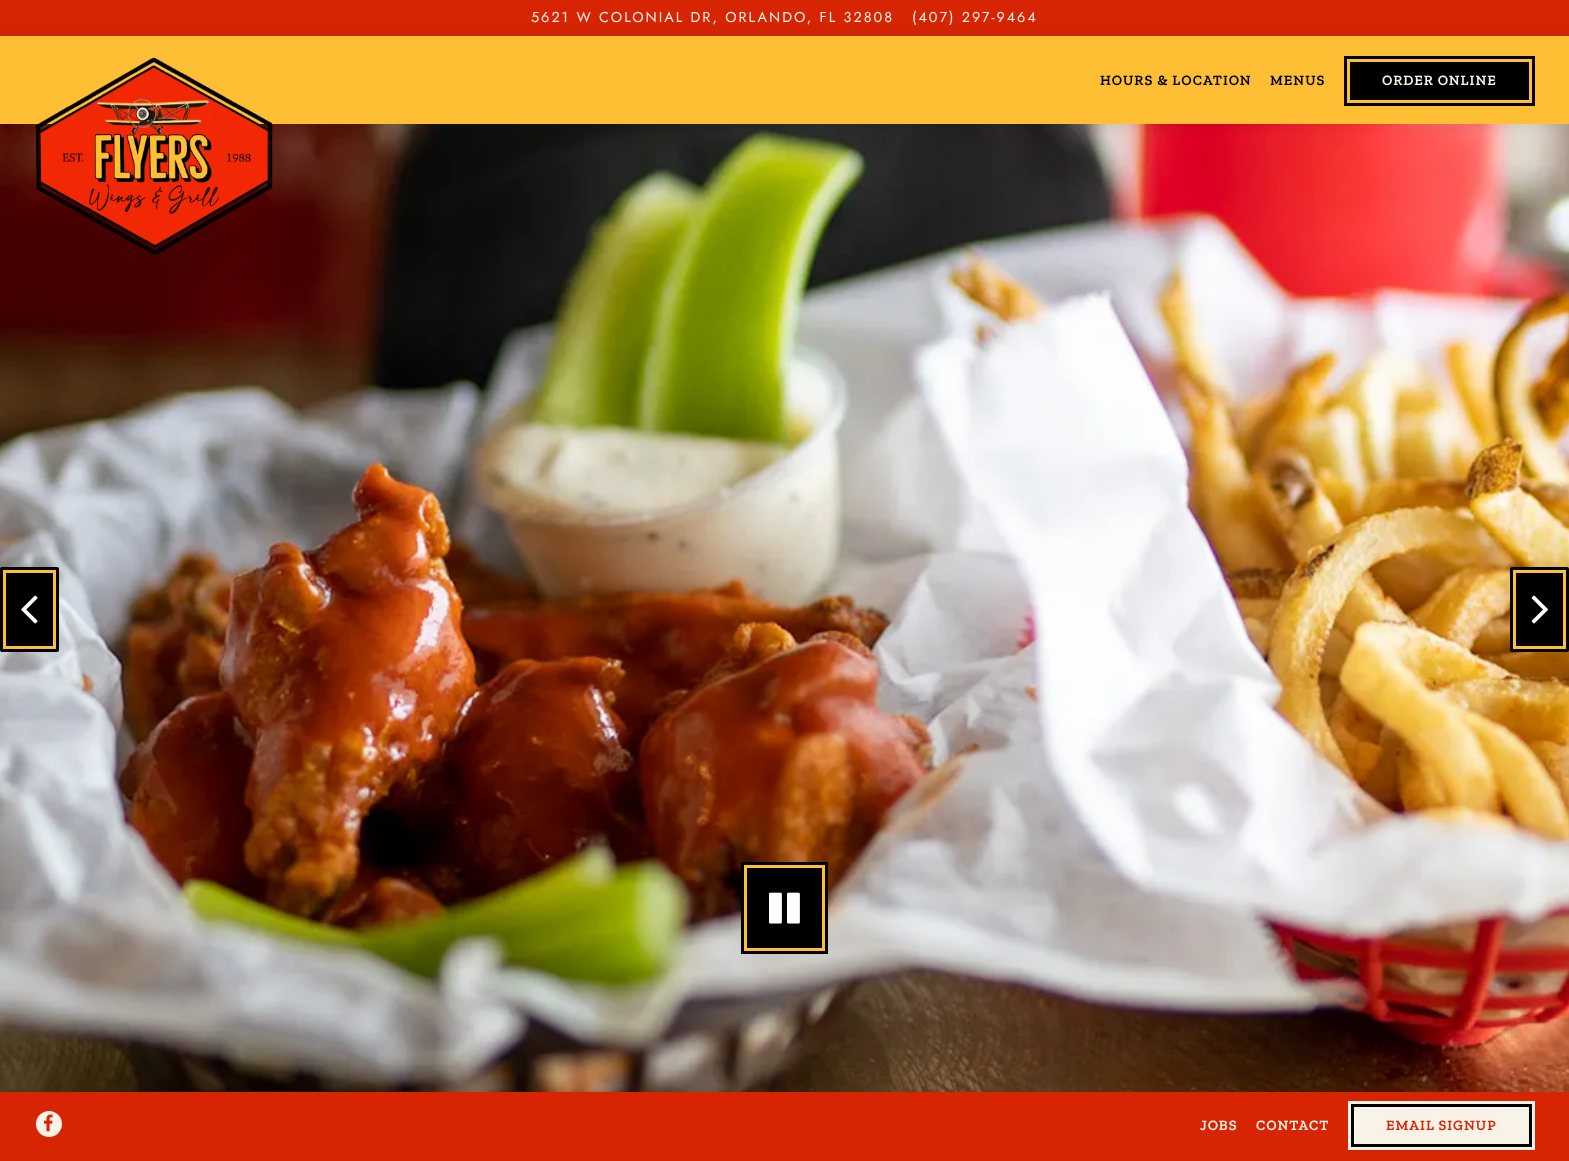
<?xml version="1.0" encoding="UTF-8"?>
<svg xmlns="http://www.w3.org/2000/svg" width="1569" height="1161">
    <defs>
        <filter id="blur1" x="-50%" y="-200%" width="200%" height="500%"><feGaussianBlur stdDeviation="7.5"/></filter>
    </defs>
    <rect width="100%" height="100%" fill="#FFFFFF"/>
    <rect x="0" y="0" width="1569" height="36" fill="#D72403"/>
    <text x="531" y="22" font-family="Jost" font-size="14.4" letter-spacing="2" fill="#F9F2E6">5621 W COLONIAL DR, ORLANDO, FL 32808</text>
    <text x="912" y="22" font-family="Jost" font-size="14.4" letter-spacing="2" fill="#F9F2E6">(407) 297-9464</text>
    <image x="0" y="124" width="1569" height="968" href="img_02.png"/>
    <rect x="0" y="36" width="1569" height="88" fill="#000000" fill-opacity="0.1" filter="url(#blur1)"/>
    <rect x="0" y="36" width="1569" height="88" fill="#FFBF34"/>
    <image x="35" y="57" width="238" height="198" href="img_01.png"/>
    <text x="1100" y="85" font-family="Zilla Slab" font-size="14.4" font-weight="600" letter-spacing="1" fill="#000000">HOURS &amp; LOCATION</text>
    <text x="1270" y="85" font-family="Zilla Slab" font-size="14.4" font-weight="600" letter-spacing="1" fill="#000000">MENUS</text>
    <rect x="1344" y="56" width="191" height="50" fill="#000000"/>
    <rect x="1348.5" y="60.5" width="182" height="41" fill="none" stroke="#FFBF34" stroke-width="3"/>
    <text x="1382" y="85" font-family="Zilla Slab" font-size="14.4" font-weight="600" letter-spacing="1" fill="#F9F2E6">ORDER ONLINE</text>
    <rect x="0" y="567" width="59" height="85" rx="2" fill="#000000"/>
    <image x="21" y="595" width="17" height="29" href="img_03.png"/>
    <rect x="4.5" y="571.5" width="50" height="76" fill="none" stroke="#FFBF34" stroke-width="3"/>
    <rect x="1510" y="567" width="59" height="85" rx="2" fill="#000000"/>
    <rect x="1514.5" y="571.5" width="50" height="76" fill="none" stroke="#FFBF34" stroke-width="3"/>
    <image x="1531" y="595" width="17" height="29" href="img_04.png"/>
    <rect x="741" y="862" width="87" height="92" fill="#000000"/>
    <image x="769" y="892" width="31" height="32" href="img_05.png"/>
    <rect x="745.5" y="866.5" width="78" height="83" fill="none" stroke="#FFBF34" stroke-width="3"/>
    <rect x="0" y="1092" width="1569" height="69" fill="#D72403"/>
    <circle cx="49" cy="1124" r="13" fill="#F9F2E6"/>
    <image x="43" y="1114" width="10" height="18" href="img_06.png"/>
    <text x="1200" y="1130" font-family="Zilla Slab" font-size="14.4" font-weight="600" letter-spacing="1" fill="#F9F2E6">JOBS</text>
    <text x="1256" y="1130" font-family="Zilla Slab" font-size="14.4" font-weight="600" letter-spacing="1" fill="#F9F2E6">CONTACT</text>
    <rect x="1348" y="1101" width="187" height="49" fill="#F9F2E6"/>
    <rect x="1352.5" y="1105.5" width="178" height="40" fill="none" stroke="#000000" stroke-width="3"/>
    <text x="1386" y="1130" font-family="Zilla Slab" font-size="14.4" font-weight="600" letter-spacing="1" fill="#D72403">EMAIL SIGNUP</text>
</svg>
